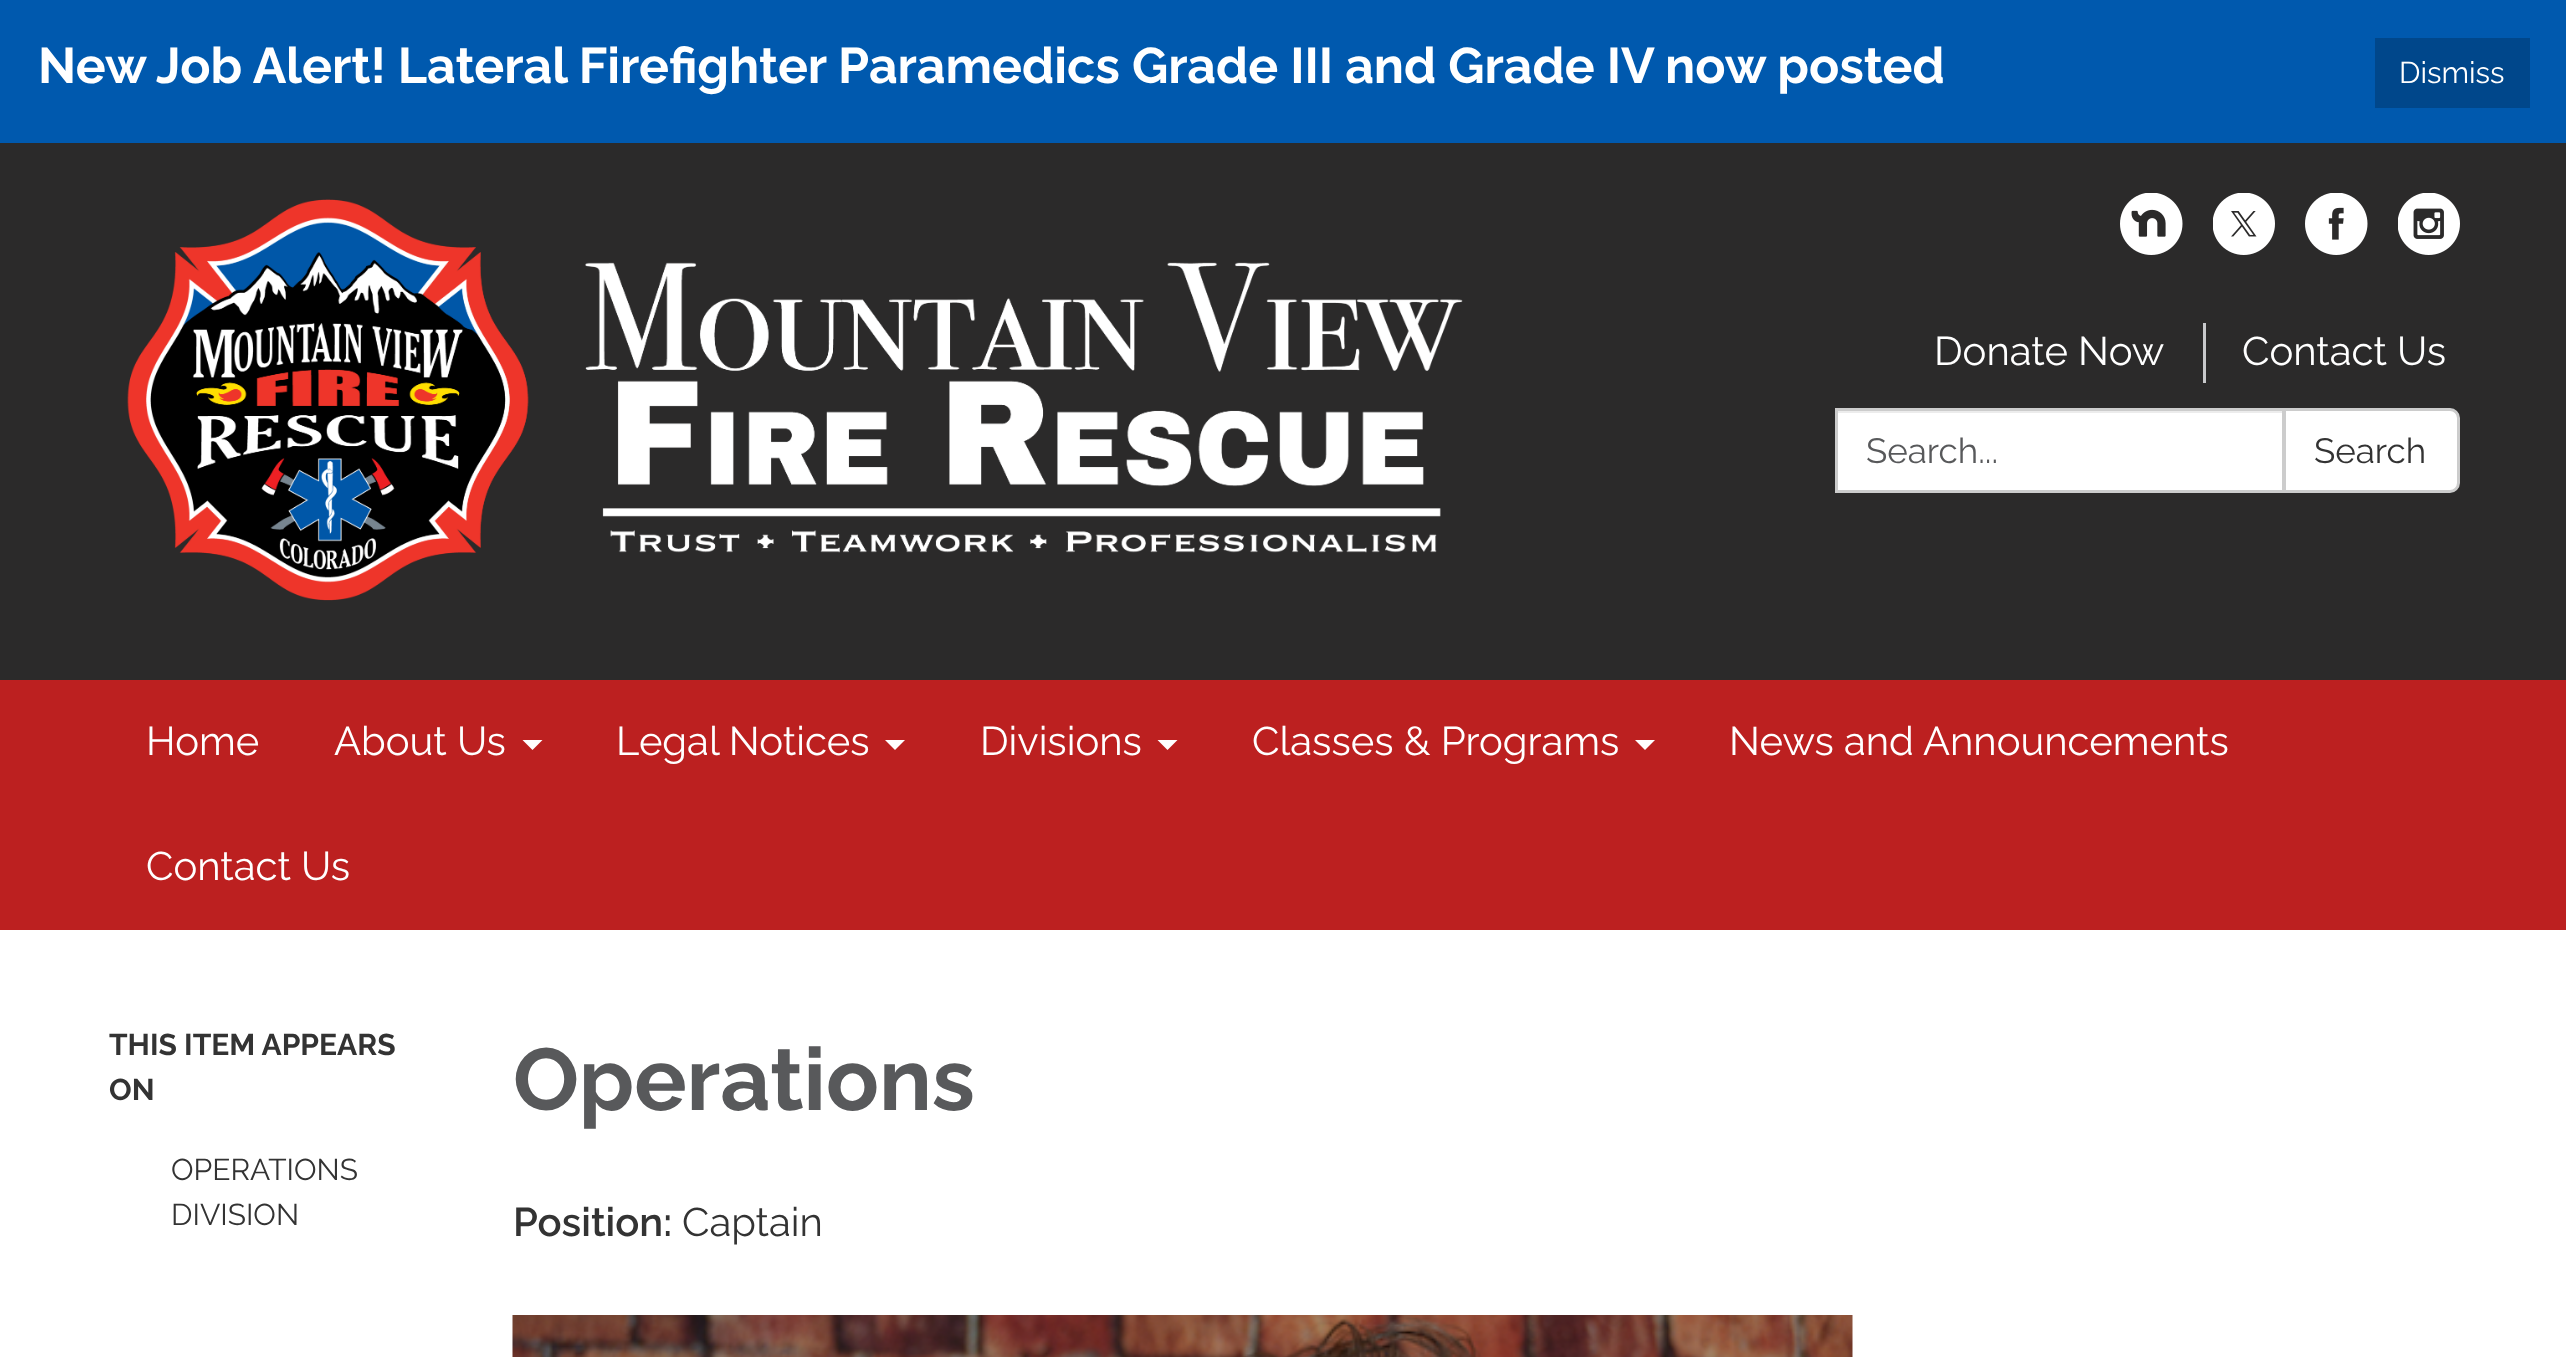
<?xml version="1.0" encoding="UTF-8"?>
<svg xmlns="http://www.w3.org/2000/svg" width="2566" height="1357">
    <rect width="100%" height="100%" fill="#BC2020"/>
    <rect x="0" y="0" width="2566" height="143" fill="#0059AE"/>
    <text x="38" y="83" font-family="Raleway" font-size="50" font-weight="700" fill="#FFFFFF">New Job Alert! Lateral Firefighter Paramedics Grade III and Grade IV now posted</text>
    <rect x="2375" y="38" width="155" height="70" fill="#00478B"/>
    <text x="2399" y="83" font-family="Raleway" font-size="30" fill="#FFFFFF">Dismiss</text>
    <rect x="0" y="143" width="2566" height="537" fill="#2B2A2A"/>
    <image x="127" y="199" width="1336" height="402" href="img_01.png"/>
    <image x="2120" y="193" width="63" height="62" href="img_02.png"/>
    <image x="2213" y="193" width="62" height="62" href="img_03.png"/>
    <image x="2305" y="193" width="63" height="62" href="img_04.png"/>
    <image x="2398" y="193" width="62" height="62" href="img_05.png"/>
    <text x="1934" y="365" font-family="Raleway" font-size="40" fill="#FFFFFF">Donate Now</text>
    <rect x="2203" y="323" width="3" height="60" fill="#C8C9CB"/>
    <text x="2242" y="365" font-family="Raleway" font-size="40" fill="#FFFFFF">Contact Us</text>
    <rect x="1838" y="413" width="444" height="77" fill="#FFFFFF"/>
    <rect x="1838" y="411" width="445" height="2" fill="#ECECEC"/>
    <rect x="1836.5" y="409.5" width="447" height="82" fill="none" stroke="#CCCCCC" stroke-width="3"/>
    <text x="1866" y="463" font-family="Raleway" font-size="35" fill="#58595B">Search...</text>
    <path d="M 2284.5 409.5 H 2450 C 2454.5 409.5 2458.5 413.5 2458.5 418 V 483 C 2458.5 487.5 2454.5 491.5 2450 491.5 H 2284.5 Z" fill="#FFFFFF" stroke="#CCCCCC" stroke-width="3"/>
    <text x="2314" y="463" font-family="Raleway" font-size="35" fill="#333333">Search</text>
    <text x="146" y="755" font-family="Raleway" font-size="40" fill="#FFFFFF">Home</text>
    <text x="334" y="755" font-family="Raleway" font-size="40" fill="#FFFFFF">About Us</text>
    <path d="M 522.5 740 H 542.5 L 532.5 750 Z" fill="#FFFFFF"/>
    <text x="616" y="755" font-family="Raleway" font-size="40" fill="#FFFFFF">Legal Notices</text>
    <path d="M 885 740 H 905 L 895 750 Z" fill="#FFFFFF"/>
    <text x="980" y="755" font-family="Raleway" font-size="40" fill="#FFFFFF">Divisions</text>
    <path d="M 1157.5 740 H 1177.5 L 1167.5 750 Z" fill="#FFFFFF"/>
    <text x="1252" y="755" font-family="Raleway" font-size="40" fill="#FFFFFF">Classes &amp; Programs</text>
    <path d="M 1635 740 H 1655 L 1645 750 Z" fill="#FFFFFF"/>
    <text x="1729" y="755" font-family="Raleway" font-size="40" fill="#FFFFFF">News and Announcements</text>
    <text x="146" y="880" font-family="Raleway" font-size="40" fill="#FFFFFF">Contact Us</text>
    <rect x="0" y="930" width="2566" height="427" fill="#FFFFFF"/>
    <text font-family="Raleway" font-size="30" font-weight="700" fill="#333333">
        <tspan x="109" y="1055">THIS ITEM APPEARS</tspan>
        <tspan x="109" y="1100">ON</tspan>
    </text>
    <text font-family="Raleway" font-size="30" fill="#333333">
        <tspan x="171" y="1180">OPERATIONS</tspan>
        <tspan x="171" y="1225">DIVISION</tspan>
    </text>
    <text x="513" y="1110" font-family="Raleway" font-size="87.5" font-weight="700" fill="#58595B">Operations</text>
    <text x="513" y="1236" font-family="Raleway" font-size="40" font-weight="600" fill="#333333">Position:</text>
    <text x="682" y="1236" font-family="Raleway" font-size="40" fill="#333333">Captain</text>
    <image x="512" y="1315" width="1341" height="42" href="img_06.png"/>
</svg>
